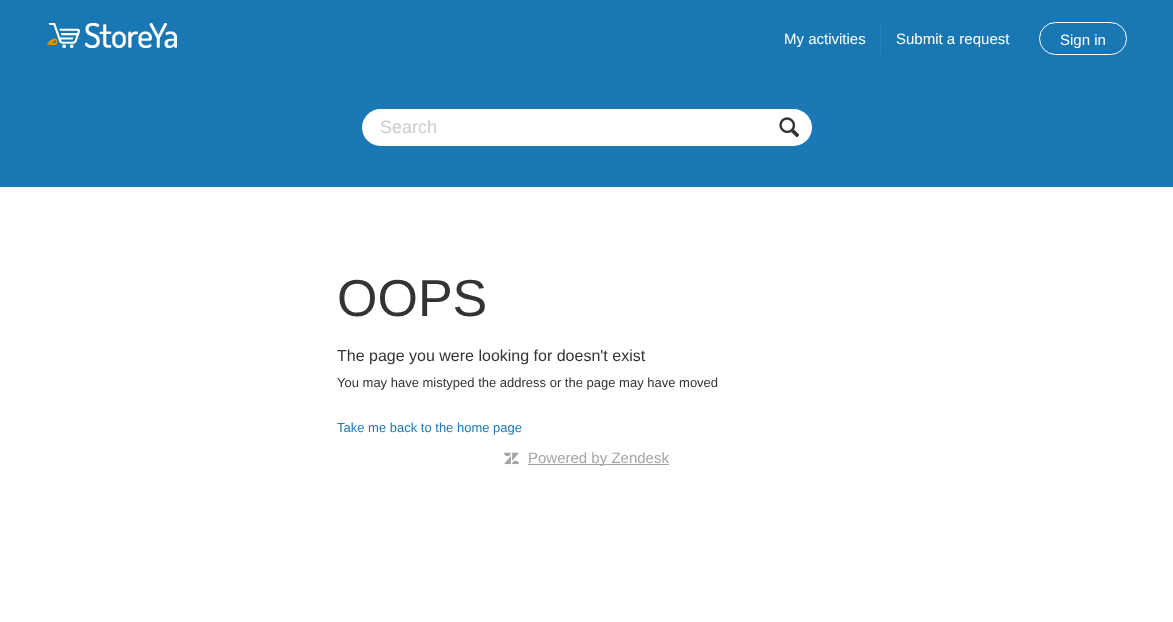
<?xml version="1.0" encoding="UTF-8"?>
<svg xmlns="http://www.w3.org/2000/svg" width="1173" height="622">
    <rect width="100%" height="100%" fill="#FFFFFF"/>
    <rect x="0" y="0" width="1173" height="67" fill="#1978B4"/>
    <image x="47" y="23" width="130" height="25" href="img_01.png"/>
    <text x="784" y="44" font-family="Liberation Sans" font-size="15" fill="#FFFFFF">My activities</text>
    <rect x="880" y="22" width="1" height="33" fill="#2981B9"/>
    <text x="896" y="44" font-family="Liberation Sans" font-size="15" fill="#FFFFFF">Submit a request</text>
    <path d="M 1040 37 C 1039 45 1045 52 1052 54 H 1114 C 1121 52 1127 45 1126 37 C 1125 46 1119 52 1110 52 H 1056 C 1047 52 1041 46 1040 37 Z" fill="#1874AF"/>
    <rect x="1039.5" y="22.5" width="87" height="32" rx="16" fill="none" stroke="#FFFFFF"/>
    <text x="1060" y="45" font-family="Liberation Sans" font-size="15" fill="#FFFFFF">Sign in</text>
    <rect x="0" y="67" width="1173" height="120" fill="#1A78B5"/>
    <rect x="362" y="109" width="450" height="37" rx="18.5" fill="#FFFFFF"/>
    <text x="380" y="133" font-family="Liberation Sans" font-size="18" fill="#CCCCCC">Search</text>
    <image x="779" y="117" width="20" height="21" href="img_02.png"/>
    <text x="337" y="316" font-family="Liberation Sans" font-size="52" fill="#333333">OOPS</text>
    <text x="337" y="361" font-family="Liberation Sans" font-size="16" fill="#333333">The page you were looking for doesn't exist</text>
    <text x="337" y="387" font-family="Liberation Sans" font-size="13" fill="#333333">You may have mistyped the address or the page may have moved</text>
    <text x="337" y="432" font-family="Liberation Sans" font-size="13" fill="#1A78B5">Take me back to the home page</text>
    <image x="504" y="452" width="15" height="13" href="img_03.png"/>
    <rect x="528" y="464" width="141" height="1" fill="#A5A5A5"/>
    <text x="528" y="463" font-family="Liberation Sans" font-size="15" fill="#A5A5A5">Powered by Zendesk</text>
</svg>
